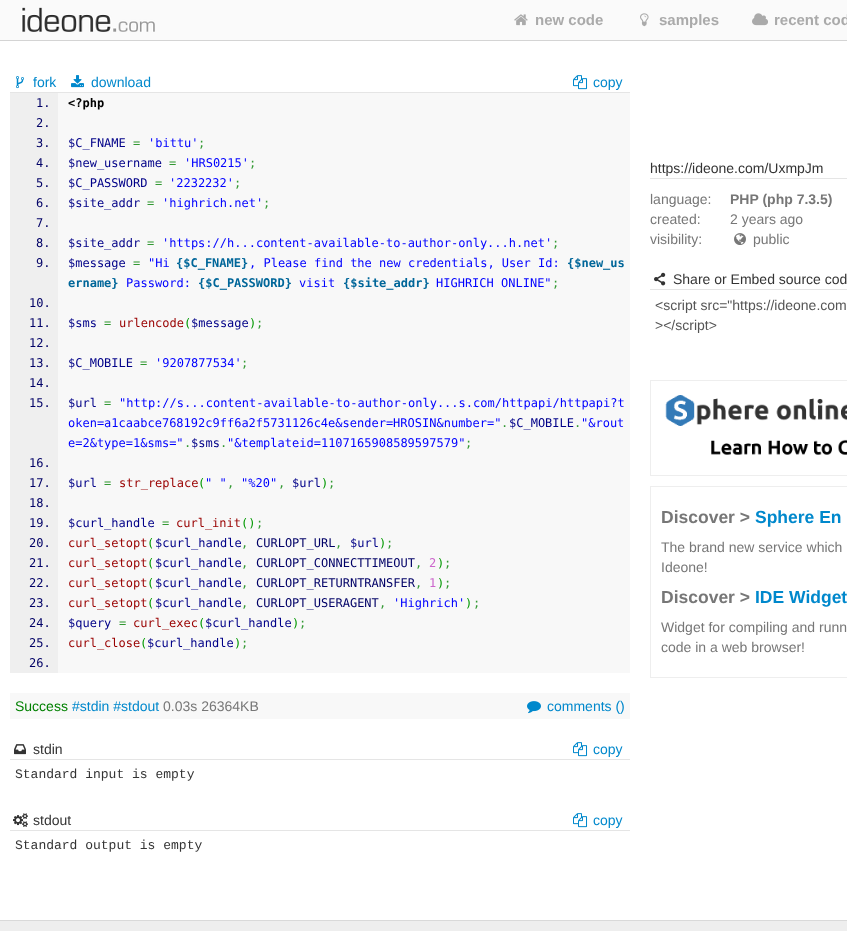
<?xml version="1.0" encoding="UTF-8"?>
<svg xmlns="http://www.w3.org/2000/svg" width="847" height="931">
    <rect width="100%" height="100%" fill="#FFFFFF"/>
    <rect x="0" y="0" width="847" height="40" fill="#FAFAFA"/>
    <rect x="0" y="40" width="847" height="1" fill="#D4D4D4"/>
    <image x="21" y="7" width="134" height="25" href="img_01.png"/>
    <image x="514" y="14" width="14" height="12" href="img_02.png"/>
    <text x="535" y="25" font-family="Liberation Sans" font-size="15" font-weight="700" fill="#AAAAAA">new code</text>
    <image x="640" y="13" width="9" height="14" href="img_03.png"/>
    <text x="659" y="25" font-family="Liberation Sans" font-size="15" font-weight="700" fill="#AAAAAA">samples</text>
    <image x="752" y="13" width="16" height="13" href="img_04.png"/>
    <text x="774" y="25" font-family="Liberation Sans" font-size="15" font-weight="700" fill="#AAAAAA">recent cod</text>
    <rect x="10" y="92" width="620" height="1" fill="#E5E5E5"/>
    <image x="16" y="76" width="8" height="13" href="img_05.png"/>
    <text x="33" y="87" font-family="Liberation Sans" font-size="14" fill="#0088CC">fork</text>
    <image x="71" y="75" width="13" height="13" href="img_06.png"/>
    <text x="91" y="87" font-family="Liberation Sans" font-size="14" fill="#0088CC">download</text>
    <image x="573" y="75" width="15" height="15" href="img_07.png"/>
    <text x="593" y="87" font-family="Liberation Sans" font-size="14" fill="#0088CC">copy</text>
    <rect x="10" y="93" width="48" height="580" fill="#EFEFEF"/>
    <rect x="58" y="93" width="572" height="580" fill="#F8F8F8"/>
    <text x="36" y="107" font-family="DejaVu Sans Mono" font-size="12" fill="#000066">1.</text>
    <text x="68" y="107" font-family="DejaVu Sans Mono" font-size="12" font-weight="700" fill="#000000">&lt;?php</text>
    <text font-family="DejaVu Sans Mono" font-size="12" fill="#000066">
        <tspan x="36" y="127">2.</tspan>
        <tspan x="36" y="147">3.</tspan>
    </text>
    <text x="68" y="147" font-family="DejaVu Sans Mono" font-size="12" fill="#000088">$C_FNAME</text>
    <text x="133" y="147" font-family="DejaVu Sans Mono" font-size="12" fill="#339933">=</text>
    <text x="148" y="147" font-family="DejaVu Sans Mono" font-size="12" fill="#0000FF">'bittu'</text>
    <text x="198" y="147" font-family="DejaVu Sans Mono" font-size="12" fill="#339933">;</text>
    <text x="36" y="167" font-family="DejaVu Sans Mono" font-size="12" fill="#000066">4.</text>
    <text x="68" y="167" font-family="DejaVu Sans Mono" font-size="12" fill="#000088">$new_username</text>
    <text x="169" y="167" font-family="DejaVu Sans Mono" font-size="12" fill="#339933">=</text>
    <text x="184" y="167" font-family="DejaVu Sans Mono" font-size="12" fill="#0000FF">'HRS0215'</text>
    <text x="249" y="167" font-family="DejaVu Sans Mono" font-size="12" fill="#339933">;</text>
    <text x="36" y="187" font-family="DejaVu Sans Mono" font-size="12" fill="#000066">5.</text>
    <text x="68" y="187" font-family="DejaVu Sans Mono" font-size="12" fill="#000088">$C_PASSWORD</text>
    <text x="155" y="187" font-family="DejaVu Sans Mono" font-size="12" fill="#339933">=</text>
    <text x="169" y="187" font-family="DejaVu Sans Mono" font-size="12" fill="#0000FF">'2232232'</text>
    <text x="234" y="187" font-family="DejaVu Sans Mono" font-size="12" fill="#339933">;</text>
    <text x="36" y="207" font-family="DejaVu Sans Mono" font-size="12" fill="#000066">6.</text>
    <text x="68" y="207" font-family="DejaVu Sans Mono" font-size="12" fill="#000088">$site_addr</text>
    <text x="147" y="207" font-family="DejaVu Sans Mono" font-size="12" fill="#339933">=</text>
    <text x="162" y="207" font-family="DejaVu Sans Mono" font-size="12" fill="#0000FF">'highrich.net'</text>
    <text x="263" y="207" font-family="DejaVu Sans Mono" font-size="12" fill="#339933">;</text>
    <text font-family="DejaVu Sans Mono" font-size="12" fill="#000066">
        <tspan x="36" y="227">7.</tspan>
        <tspan x="36" y="247">8.</tspan>
    </text>
    <text x="68" y="247" font-family="DejaVu Sans Mono" font-size="12" fill="#000088">$site_addr</text>
    <text x="147" y="247" font-family="DejaVu Sans Mono" font-size="12" fill="#339933">=</text>
    <text x="162" y="247" font-family="DejaVu Sans Mono" font-size="12" fill="#0000FF">'https://h...content-available-to-author-only...h.net'</text>
    <text x="552" y="247" font-family="DejaVu Sans Mono" font-size="12" fill="#339933">;</text>
    <text x="36" y="267" font-family="DejaVu Sans Mono" font-size="12" fill="#000066">9.</text>
    <text x="68" y="267" font-family="DejaVu Sans Mono" font-size="12" fill="#000088">$message</text>
    <text x="133" y="267" font-family="DejaVu Sans Mono" font-size="12" fill="#339933">=</text>
    <text x="148" y="267" font-family="DejaVu Sans Mono" font-size="12" fill="#0000FF">"Hi</text>
    <text x="176" y="267" font-family="DejaVu Sans Mono" font-size="12" font-weight="700" fill="#006699">{$C_FNAME}</text>
    <text x="249" y="267" font-family="DejaVu Sans Mono" font-size="12" fill="#0000FF">, Please find the new credentials, User Id:</text>
    <text x="567" y="267" font-family="DejaVu Sans Mono" font-size="12" font-weight="700" fill="#006699">{$new_us</text>
    <text x="68" y="287" font-family="DejaVu Sans Mono" font-size="12" font-weight="700" fill="#006699">ername}</text>
    <text x="126" y="287" font-family="DejaVu Sans Mono" font-size="12" fill="#0000FF">Password:</text>
    <text x="198" y="287" font-family="DejaVu Sans Mono" font-size="12" font-weight="700" fill="#006699">{$C_PASSWORD}</text>
    <text x="299" y="287" font-family="DejaVu Sans Mono" font-size="12" fill="#0000FF">visit</text>
    <text x="343" y="287" font-family="DejaVu Sans Mono" font-size="12" font-weight="700" fill="#006699">{$site_addr}</text>
    <text x="436" y="287" font-family="DejaVu Sans Mono" font-size="12" fill="#0000FF">HIGHRICH ONLINE"</text>
    <text x="552" y="287" font-family="DejaVu Sans Mono" font-size="12" fill="#339933">;</text>
    <text font-family="DejaVu Sans Mono" font-size="12" fill="#000066">
        <tspan x="29" y="307">10.</tspan>
        <tspan x="29" y="327">11.</tspan>
    </text>
    <text x="68" y="327" font-family="DejaVu Sans Mono" font-size="12" fill="#000088">$sms</text>
    <text x="104" y="327" font-family="DejaVu Sans Mono" font-size="12" fill="#339933">=</text>
    <text x="119" y="327" font-family="DejaVu Sans Mono" font-size="12" fill="#990000">urlencode</text>
    <text x="184" y="327" font-family="DejaVu Sans Mono" font-size="12" fill="#009900">(</text>
    <text x="191" y="327" font-family="DejaVu Sans Mono" font-size="12" fill="#000088">$message</text>
    <text x="249" y="327" font-family="DejaVu Sans Mono" font-size="12" fill="#009900">)</text>
    <text x="256" y="327" font-family="DejaVu Sans Mono" font-size="12" fill="#339933">;</text>
    <text font-family="DejaVu Sans Mono" font-size="12" fill="#000066">
        <tspan x="29" y="347">12.</tspan>
        <tspan x="29" y="367">13.</tspan>
    </text>
    <text x="68" y="367" font-family="DejaVu Sans Mono" font-size="12" fill="#000088">$C_MOBILE</text>
    <text x="140" y="367" font-family="DejaVu Sans Mono" font-size="12" fill="#339933">=</text>
    <text x="155" y="367" font-family="DejaVu Sans Mono" font-size="12" fill="#0000FF">'9207877534'</text>
    <text x="241" y="367" font-family="DejaVu Sans Mono" font-size="12" fill="#339933">;</text>
    <text font-family="DejaVu Sans Mono" font-size="12" fill="#000066">
        <tspan x="29" y="387">14.</tspan>
        <tspan x="29" y="407">15.</tspan>
    </text>
    <text x="68" y="407" font-family="DejaVu Sans Mono" font-size="12" fill="#000088">$url</text>
    <text x="104" y="407" font-family="DejaVu Sans Mono" font-size="12" fill="#339933">=</text>
    <text x="119" y="407" font-family="DejaVu Sans Mono" font-size="12" fill="#0000FF">"http://s...content-available-to-author-only...s.com/httpapi/httpapi?t</text>
    <text x="68" y="427" font-family="DejaVu Sans Mono" font-size="12" fill="#0000FF">oken=a1caabce768192c9ff6a2f5731126c4e&amp;sender=HROSIN&amp;number="</text>
    <text x="501" y="427" font-family="DejaVu Sans Mono" font-size="12" fill="#339933">.</text>
    <text x="509" y="427" font-family="DejaVu Sans Mono" font-size="12" fill="#000088">$C_MOBILE</text>
    <text x="574" y="427" font-family="DejaVu Sans Mono" font-size="12" fill="#339933">.</text>
    <text x="581" y="427" font-family="DejaVu Sans Mono" font-size="12" fill="#0000FF">"&amp;rout</text>
    <text x="68" y="447" font-family="DejaVu Sans Mono" font-size="12" fill="#0000FF">e=2&amp;type=1&amp;sms="</text>
    <text x="184" y="447" font-family="DejaVu Sans Mono" font-size="12" fill="#339933">.</text>
    <text x="191" y="447" font-family="DejaVu Sans Mono" font-size="12" fill="#000088">$sms</text>
    <text x="220" y="447" font-family="DejaVu Sans Mono" font-size="12" fill="#339933">.</text>
    <text x="227" y="447" font-family="DejaVu Sans Mono" font-size="12" fill="#0000FF">"&amp;templateid=1107165908589597579"</text>
    <text x="465" y="447" font-family="DejaVu Sans Mono" font-size="12" fill="#339933">;</text>
    <text font-family="DejaVu Sans Mono" font-size="12" fill="#000066">
        <tspan x="29" y="467">16.</tspan>
        <tspan x="29" y="487">17.</tspan>
    </text>
    <text x="68" y="487" font-family="DejaVu Sans Mono" font-size="12" fill="#000088">$url</text>
    <text x="104" y="487" font-family="DejaVu Sans Mono" font-size="12" fill="#339933">=</text>
    <text x="119" y="487" font-family="DejaVu Sans Mono" font-size="12" fill="#990000">str_replace</text>
    <text x="198" y="487" font-family="DejaVu Sans Mono" font-size="12" fill="#009900">(</text>
    <text x="205" y="487" font-family="DejaVu Sans Mono" font-size="12" fill="#0000FF">" "</text>
    <text x="241" y="487" font-family="DejaVu Sans Mono" font-size="12" fill="#0000FF">"%20"</text>
    <text x="292" y="487" font-family="DejaVu Sans Mono" font-size="12" fill="#000088">$url</text>
    <text x="321" y="487" font-family="DejaVu Sans Mono" font-size="12" fill="#009900">)</text>
    <text x="328" y="487" font-family="DejaVu Sans Mono" font-size="12" fill="#339933">;</text>
    <text x="227" y="487" font-family="DejaVu Sans Mono" font-size="12" fill="#339933">,</text>
    <text x="278" y="487" font-family="DejaVu Sans Mono" font-size="12" fill="#339933">,</text>
    <text font-family="DejaVu Sans Mono" font-size="12" fill="#000066">
        <tspan x="29" y="507">18.</tspan>
        <tspan x="29" y="527">19.</tspan>
    </text>
    <text x="68" y="527" font-family="DejaVu Sans Mono" font-size="12" fill="#000088">$curl_handle</text>
    <text x="162" y="527" font-family="DejaVu Sans Mono" font-size="12" fill="#339933">=</text>
    <text x="176" y="527" font-family="DejaVu Sans Mono" font-size="12" fill="#990000">curl_init</text>
    <text x="241" y="527" font-family="DejaVu Sans Mono" font-size="12" fill="#009900">()</text>
    <text x="256" y="527" font-family="DejaVu Sans Mono" font-size="12" fill="#339933">;</text>
    <text x="29" y="547" font-family="DejaVu Sans Mono" font-size="12" fill="#000066">20.</text>
    <text x="68" y="547" font-family="DejaVu Sans Mono" font-size="12" fill="#990000">curl_setopt</text>
    <text x="147" y="547" font-family="DejaVu Sans Mono" font-size="12" fill="#009900">(</text>
    <text x="155" y="547" font-family="DejaVu Sans Mono" font-size="12" fill="#000088">$curl_handle</text>
    <text x="241" y="547" font-family="DejaVu Sans Mono" font-size="12" fill="#339933">,</text>
    <text x="256" y="547" font-family="DejaVu Sans Mono" font-size="12" fill="#000066">CURLOPT_URL</text>
    <text x="335" y="547" font-family="DejaVu Sans Mono" font-size="12" fill="#339933">,</text>
    <text x="350" y="547" font-family="DejaVu Sans Mono" font-size="12" fill="#000088">$url</text>
    <text x="379" y="547" font-family="DejaVu Sans Mono" font-size="12" fill="#009900">)</text>
    <text x="386" y="547" font-family="DejaVu Sans Mono" font-size="12" fill="#339933">;</text>
    <text x="29" y="567" font-family="DejaVu Sans Mono" font-size="12" fill="#000066">21.</text>
    <text x="68" y="567" font-family="DejaVu Sans Mono" font-size="12" fill="#990000">curl_setopt</text>
    <text x="147" y="567" font-family="DejaVu Sans Mono" font-size="12" fill="#009900">(</text>
    <text x="155" y="567" font-family="DejaVu Sans Mono" font-size="12" fill="#000088">$curl_handle</text>
    <text x="241" y="567" font-family="DejaVu Sans Mono" font-size="12" fill="#339933">,</text>
    <text x="256" y="567" font-family="DejaVu Sans Mono" font-size="12" fill="#000066">CURLOPT_CONNECTTIMEOUT</text>
    <text x="415" y="567" font-family="DejaVu Sans Mono" font-size="12" fill="#339933">,</text>
    <text x="429" y="567" font-family="DejaVu Sans Mono" font-size="12" fill="#CC66CC">2</text>
    <text x="437" y="567" font-family="DejaVu Sans Mono" font-size="12" fill="#009900">)</text>
    <text x="444" y="567" font-family="DejaVu Sans Mono" font-size="12" fill="#339933">;</text>
    <text x="29" y="587" font-family="DejaVu Sans Mono" font-size="12" fill="#000066">22.</text>
    <text x="68" y="587" font-family="DejaVu Sans Mono" font-size="12" fill="#990000">curl_setopt</text>
    <text x="147" y="587" font-family="DejaVu Sans Mono" font-size="12" fill="#009900">(</text>
    <text x="155" y="587" font-family="DejaVu Sans Mono" font-size="12" fill="#000088">$curl_handle</text>
    <text x="241" y="587" font-family="DejaVu Sans Mono" font-size="12" fill="#339933">,</text>
    <text x="256" y="587" font-family="DejaVu Sans Mono" font-size="12" fill="#000066">CURLOPT_RETURNTRANSFER</text>
    <text x="415" y="587" font-family="DejaVu Sans Mono" font-size="12" fill="#339933">,</text>
    <text x="429" y="587" font-family="DejaVu Sans Mono" font-size="12" fill="#CC66CC">1</text>
    <text x="437" y="587" font-family="DejaVu Sans Mono" font-size="12" fill="#009900">)</text>
    <text x="444" y="587" font-family="DejaVu Sans Mono" font-size="12" fill="#339933">;</text>
    <text x="29" y="607" font-family="DejaVu Sans Mono" font-size="12" fill="#000066">23.</text>
    <text x="68" y="607" font-family="DejaVu Sans Mono" font-size="12" fill="#990000">curl_setopt</text>
    <text x="147" y="607" font-family="DejaVu Sans Mono" font-size="12" fill="#009900">(</text>
    <text x="155" y="607" font-family="DejaVu Sans Mono" font-size="12" fill="#000088">$curl_handle</text>
    <text x="241" y="607" font-family="DejaVu Sans Mono" font-size="12" fill="#339933">,</text>
    <text x="256" y="607" font-family="DejaVu Sans Mono" font-size="12" fill="#000066">CURLOPT_USERAGENT</text>
    <text x="379" y="607" font-family="DejaVu Sans Mono" font-size="12" fill="#339933">,</text>
    <text x="393" y="607" font-family="DejaVu Sans Mono" font-size="12" fill="#0000FF">'Highrich'</text>
    <text x="465" y="607" font-family="DejaVu Sans Mono" font-size="12" fill="#009900">)</text>
    <text x="473" y="607" font-family="DejaVu Sans Mono" font-size="12" fill="#339933">;</text>
    <text x="29" y="627" font-family="DejaVu Sans Mono" font-size="12" fill="#000066">24.</text>
    <text x="68" y="627" font-family="DejaVu Sans Mono" font-size="12" fill="#000088">$query</text>
    <text x="119" y="627" font-family="DejaVu Sans Mono" font-size="12" fill="#339933">=</text>
    <text x="133" y="627" font-family="DejaVu Sans Mono" font-size="12" fill="#990000">curl_exec</text>
    <text x="198" y="627" font-family="DejaVu Sans Mono" font-size="12" fill="#009900">(</text>
    <text x="205" y="627" font-family="DejaVu Sans Mono" font-size="12" fill="#000088">$curl_handle</text>
    <text x="292" y="627" font-family="DejaVu Sans Mono" font-size="12" fill="#009900">)</text>
    <text x="299" y="627" font-family="DejaVu Sans Mono" font-size="12" fill="#339933">;</text>
    <text x="29" y="647" font-family="DejaVu Sans Mono" font-size="12" fill="#000066">25.</text>
    <text x="68" y="647" font-family="DejaVu Sans Mono" font-size="12" fill="#990000">curl_close</text>
    <text x="140" y="647" font-family="DejaVu Sans Mono" font-size="12" fill="#009900">(</text>
    <text x="147" y="647" font-family="DejaVu Sans Mono" font-size="12" fill="#000088">$curl_handle</text>
    <text x="234" y="647" font-family="DejaVu Sans Mono" font-size="12" fill="#009900">)</text>
    <text x="241" y="647" font-family="DejaVu Sans Mono" font-size="12" fill="#339933">;</text>
    <text x="29" y="667" font-family="DejaVu Sans Mono" font-size="12" fill="#000066">26.</text>
    <rect x="10" y="693" width="620" height="26" fill="#F8F8F8"/>
    <text x="15" y="711" font-family="Liberation Sans" font-size="14" fill="#008000">Success</text>
    <text x="72" y="711" font-family="Liberation Sans" font-size="14" fill="#0088CC">#stdin #stdout</text>
    <text x="163" y="711" font-family="Liberation Sans" font-size="14" fill="#777777">0.03s 26364KB</text>
    <image x="527" y="701" width="14" height="13" href="img_08.png"/>
    <text x="547" y="711" font-family="Liberation Sans" font-size="14" fill="#0088CC">comments ()</text>
    <rect x="10" y="759" width="620" height="1" fill="#E5E5E5"/>
    <image x="14" y="744" width="12" height="11" href="img_09.png"/>
    <text x="33" y="754" font-family="Liberation Sans" font-size="14" fill="#333333">stdin</text>
    <image x="573" y="742" width="15" height="15" href="img_07.png"/>
    <text x="593" y="754" font-family="Liberation Sans" font-size="14" fill="#0088CC">copy</text>
    <text x="15" y="778" font-family="Liberation Mono" font-size="13" fill="#333333">Standard input is empty</text>
    <rect x="10" y="830" width="620" height="1" fill="#E5E5E5"/>
    <image x="13" y="813" width="15" height="14" href="img_10.png"/>
    <text x="33" y="825" font-family="Liberation Sans" font-size="14" fill="#333333">stdout</text>
    <image x="573" y="813" width="15" height="15" href="img_07.png"/>
    <text x="593" y="825" font-family="Liberation Sans" font-size="14" fill="#0088CC">copy</text>
    <text x="15" y="849" font-family="Liberation Mono" font-size="13" fill="#333333">Standard output is empty</text>
    <rect x="650" y="178" width="197" height="1" fill="#E5E5E5"/>
    <text x="650" y="173" font-family="Liberation Sans" font-size="14" fill="#333333">https://ideone.com/UxmpJm</text>
    <text x="650" y="204" font-family="Liberation Sans" font-size="14" fill="#777777">language:</text>
    <text x="730" y="204" font-family="Liberation Sans" font-size="14" font-weight="700" fill="#777777">PHP (php 7.3.5)</text>
    <text x="650" y="224" font-family="Liberation Sans" font-size="14" fill="#777777">created:</text>
    <text x="730" y="224" font-family="Liberation Sans" font-size="14" fill="#777777">2 years ago</text>
    <text x="650" y="244" font-family="Liberation Sans" font-size="14" fill="#777777">visibility:</text>
    <image x="734" y="233" width="12" height="12" href="img_11.png"/>
    <text x="753" y="244" font-family="Liberation Sans" font-size="14" fill="#777777">public</text>
    <rect x="650" y="289" width="197" height="1" fill="#E5E5E5"/>
    <image x="654" y="272" width="12" height="14" href="img_12.png"/>
    <text x="673" y="284" font-family="Liberation Sans" font-size="14" fill="#333333">Share or Embed source cod</text>
    <text font-family="Liberation Sans" font-size="14" fill="#555555">
        <tspan x="655" y="310">&lt;script src="https://ideone.com</tspan>
        <tspan x="655" y="330">&gt;&lt;/script&gt;</tspan>
    </text>
    <rect x="650.5" y="380.5" width="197" height="95" fill="none" stroke="#EEEEEE"/>
    <image x="665" y="395" width="182" height="60" href="img_13.png"/>
    <rect x="650.5" y="486.5" width="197" height="191" fill="none" stroke="#EEEEEE"/>
    <text x="661" y="523" font-family="Liberation Sans" font-size="17.5" font-weight="700" fill="#777777">Discover &gt;</text>
    <text x="755" y="523" font-family="Liberation Sans" font-size="17.5" font-weight="700" fill="#0088CC">Sphere En</text>
    <text font-family="Liberation Sans" font-size="14" fill="#777777">
        <tspan x="661" y="552">The brand new service which</tspan>
        <tspan x="661" y="572">Ideone!</tspan>
    </text>
    <text x="661" y="603" font-family="Liberation Sans" font-size="17.5" font-weight="700" fill="#777777">Discover &gt;</text>
    <text x="755" y="603" font-family="Liberation Sans" font-size="17.5" font-weight="700" fill="#0088CC">IDE Widget</text>
    <text font-family="Liberation Sans" font-size="14" fill="#777777">
        <tspan x="661" y="632">Widget for compiling and runn</tspan>
        <tspan x="661" y="652">code in a web browser!</tspan>
    </text>
    <rect x="0" y="921" width="847" height="10" fill="#EEEEEE"/>
    <rect x="0" y="920" width="847" height="1" fill="#D9D9D9"/>
</svg>
